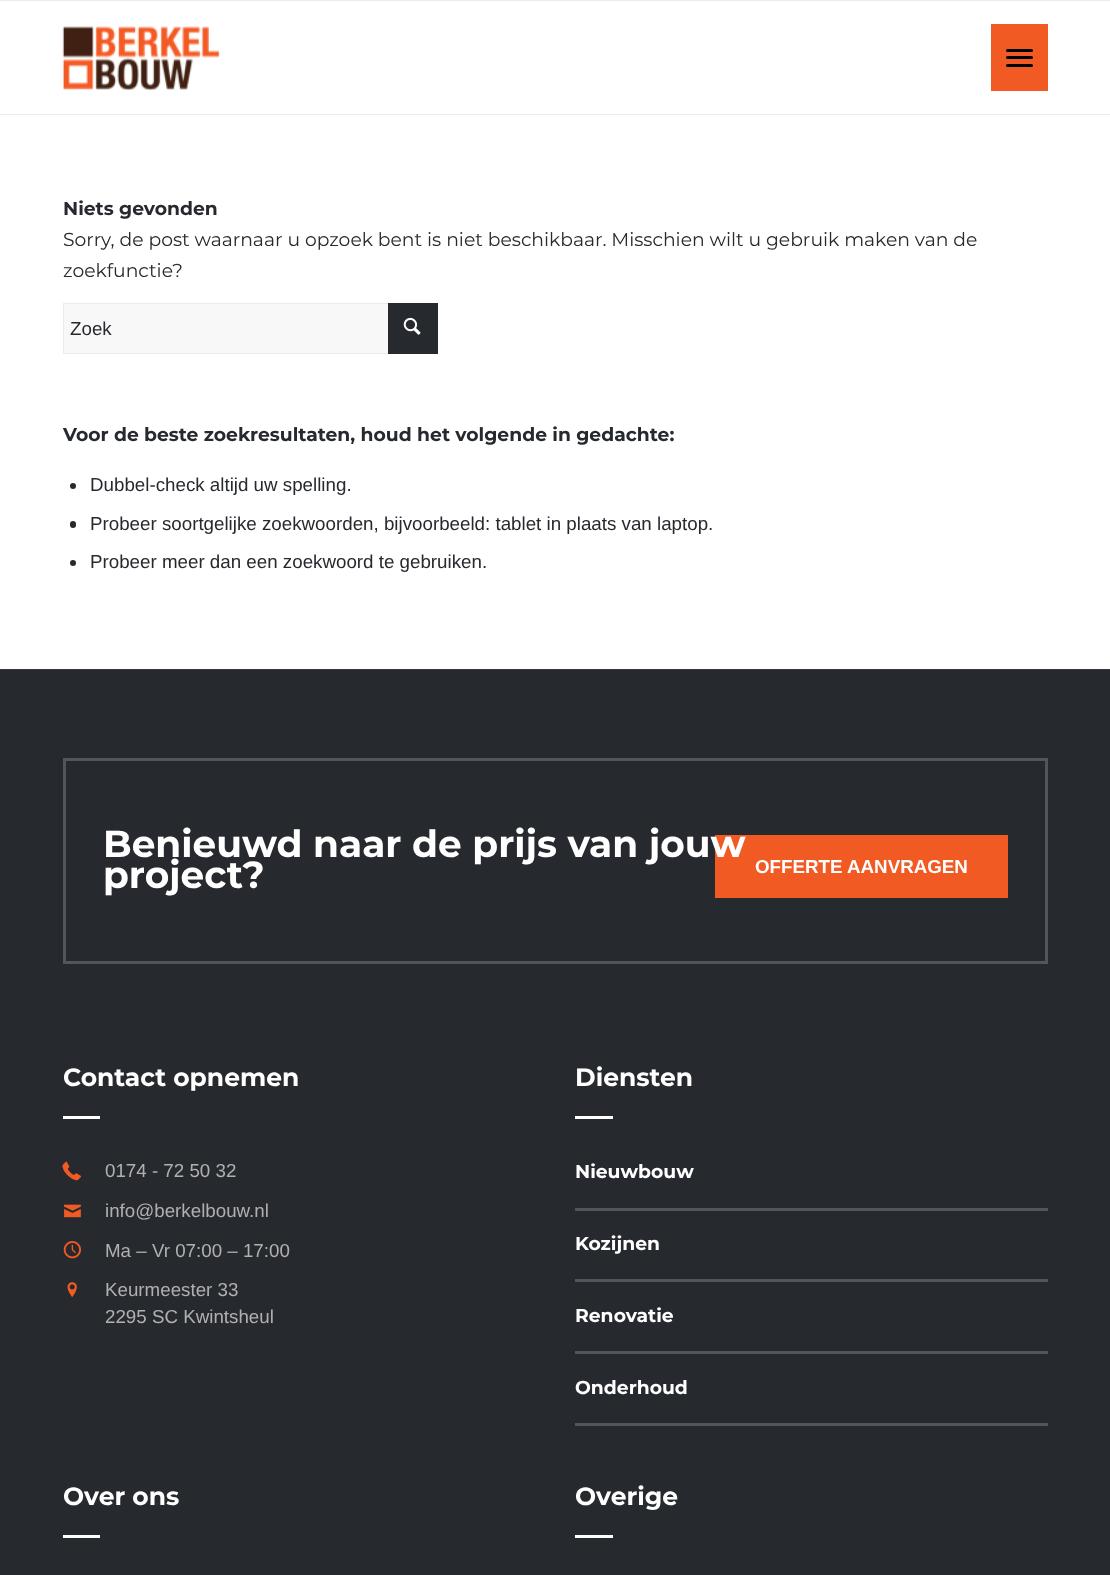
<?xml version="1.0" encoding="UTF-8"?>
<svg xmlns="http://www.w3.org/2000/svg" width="1110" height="1575">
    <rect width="100%" height="100%" fill="#FFFFFF"/>
    <rect x="0" y="0" width="1110" height="1" fill="#EBEBEB"/>
    <rect x="0" y="114" width="1110" height="1" fill="#EBEBEB"/>
    <image x="62" y="26" width="158" height="64" href="img_01.png"/>
    <rect x="991" y="24" width="57" height="67" fill="#F25A24"/>
    <rect x="1006" y="56" width="27" height="3" rx="1.5" fill="#000000"/>
    <rect x="1006" y="49" width="27" height="3" rx="1.5" fill="#000000"/>
    <rect x="1006" y="64" width="27" height="3" rx="1.5" fill="#000000"/>
    <text x="63" y="215" font-family="Montserrat" font-size="18.75" font-weight="700" fill="#26292E">Niets gevonden</text>
    <text font-family="Montserrat" font-size="18.75" fill="#26292E">
        <tspan x="63" y="246">Sorry, de post waarnaar u opzoek bent is niet beschikbaar. Misschien wilt u gebruik maken van de</tspan>
        <tspan x="63" y="277">zoekfunctie?</tspan>
    </text>
    <rect x="64" y="304" width="324" height="49" fill="#F8F8F8"/>
    <rect x="63.5" y="303.5" width="374" height="50" fill="none" stroke="#EBEBEB"/>
    <text x="70" y="335" font-family="Liberation Sans" font-size="18.75" fill="#26292E">Zoek</text>
    <rect x="388" y="303" width="50" height="51" fill="#26292E"/>
    <image x="403" y="317" width="18" height="18" href="img_02.png"/>
    <text x="63" y="441" font-family="Montserrat" font-size="18.75" font-weight="700" fill="#26292E">Voor de beste zoekresultaten, houd het volgende in gedachte:</text>
    <circle cx="73" cy="486" r="3" fill="#26292E"/>
    <text x="90" y="491" font-family="Liberation Sans" font-size="18.75" fill="#26292E">Dubbel-check altijd uw spelling.</text>
    <rect x="70" y="521" width="6" height="7" rx="3" fill="#26292E"/>
    <text x="90" y="530" font-family="Liberation Sans" font-size="18.75" fill="#26292E">Probeer soortgelijke zoekwoorden, bijvoorbeeld: tablet in plaats van laptop.</text>
    <circle cx="73" cy="563" r="3" fill="#26292E"/>
    <text x="90" y="568" font-family="Liberation Sans" font-size="18.75" fill="#26292E">Probeer meer dan een zoekwoord te gebruiken.</text>
    <rect x="0" y="669" width="1110" height="1" fill="#35383C"/>
    <rect x="0" y="670" width="1110" height="905" fill="#26292E"/>
    <rect x="64.5" y="759.5" width="982" height="203" fill="none" stroke="#52565C" stroke-width="3"/>
    <rect x="715" y="835" width="293" height="63" fill="#F25A24"/>
    <text font-family="Montserrat" font-size="37.5" font-weight="700" fill="#FFFFFF">
        <tspan x="103" y="857">Benieuwd naar de prijs van jouw</tspan>
        <tspan x="103" y="888">project?</tspan>
    </text>
    <text x="755" y="873" font-family="Liberation Sans" font-size="18.75" font-weight="700" fill="#FFFFFF">OFFERTE AANVRAGEN</text>
    <text x="63" y="1086" font-family="Montserrat" font-size="25" font-weight="700" fill="#FFFFFF">Contact opnemen</text>
    <rect x="63" y="1116" width="37" height="3" fill="#FFFFFF"/>
    <image x="62" y="1161" width="19" height="20" href="img_03.png"/>
    <text x="105" y="1177" font-family="Liberation Sans" font-size="18.75" fill="#B0B0B0">0174 - 72 50 32</text>
    <image x="64" y="1204" width="17" height="14" href="img_04.png"/>
    <text x="105" y="1217" font-family="Liberation Sans" font-size="18.75" fill="#B0B0B0">info@berkelbouw.nl</text>
    <image x="63" y="1241" width="18" height="18" href="img_05.png"/>
    <text x="105" y="1257" font-family="Liberation Sans" font-size="18.75" fill="#B0B0B0">Ma – Vr 07:00 – 17:00</text>
    <image x="67" y="1282" width="10" height="16" href="img_06.png"/>
    <text font-family="Liberation Sans" font-size="18.75" fill="#B0B0B0">
        <tspan x="105" y="1296">Keurmeester 33</tspan>
        <tspan x="105" y="1323">2295 SC Kwintsheul</tspan>
    </text>
    <text x="575" y="1086" font-family="Montserrat" font-size="25" font-weight="700" fill="#FFFFFF">Diensten</text>
    <rect x="575" y="1116" width="38" height="3" fill="#FFFFFF"/>
    <text x="575" y="1178" font-family="Montserrat" font-size="18.75" font-weight="700" fill="#FFFFFF">Nieuwbouw</text>
    <rect x="575" y="1208" width="473" height="3" fill="#52565C"/>
    <text x="575" y="1250" font-family="Montserrat" font-size="18.75" font-weight="700" fill="#FFFFFF">Kozijnen</text>
    <rect x="575" y="1279" width="473" height="3" fill="#52565C"/>
    <text x="575" y="1322" font-family="Montserrat" font-size="18.75" font-weight="700" fill="#FFFFFF">Renovatie</text>
    <rect x="575" y="1351" width="473" height="3" fill="#52565C"/>
    <text x="575" y="1394" font-family="Montserrat" font-size="18.75" font-weight="700" fill="#FFFFFF">Onderhoud</text>
    <rect x="575" y="1423" width="473" height="3" fill="#52565C"/>
    <text x="63" y="1505" font-family="Montserrat" font-size="25" font-weight="700" fill="#FFFFFF">Over ons</text>
    <rect x="63" y="1535" width="37" height="3" fill="#FFFFFF"/>
    <text x="575" y="1505" font-family="Montserrat" font-size="25" font-weight="700" fill="#FFFFFF">Overige</text>
    <rect x="575" y="1535" width="38" height="3" fill="#FFFFFF"/>
</svg>
